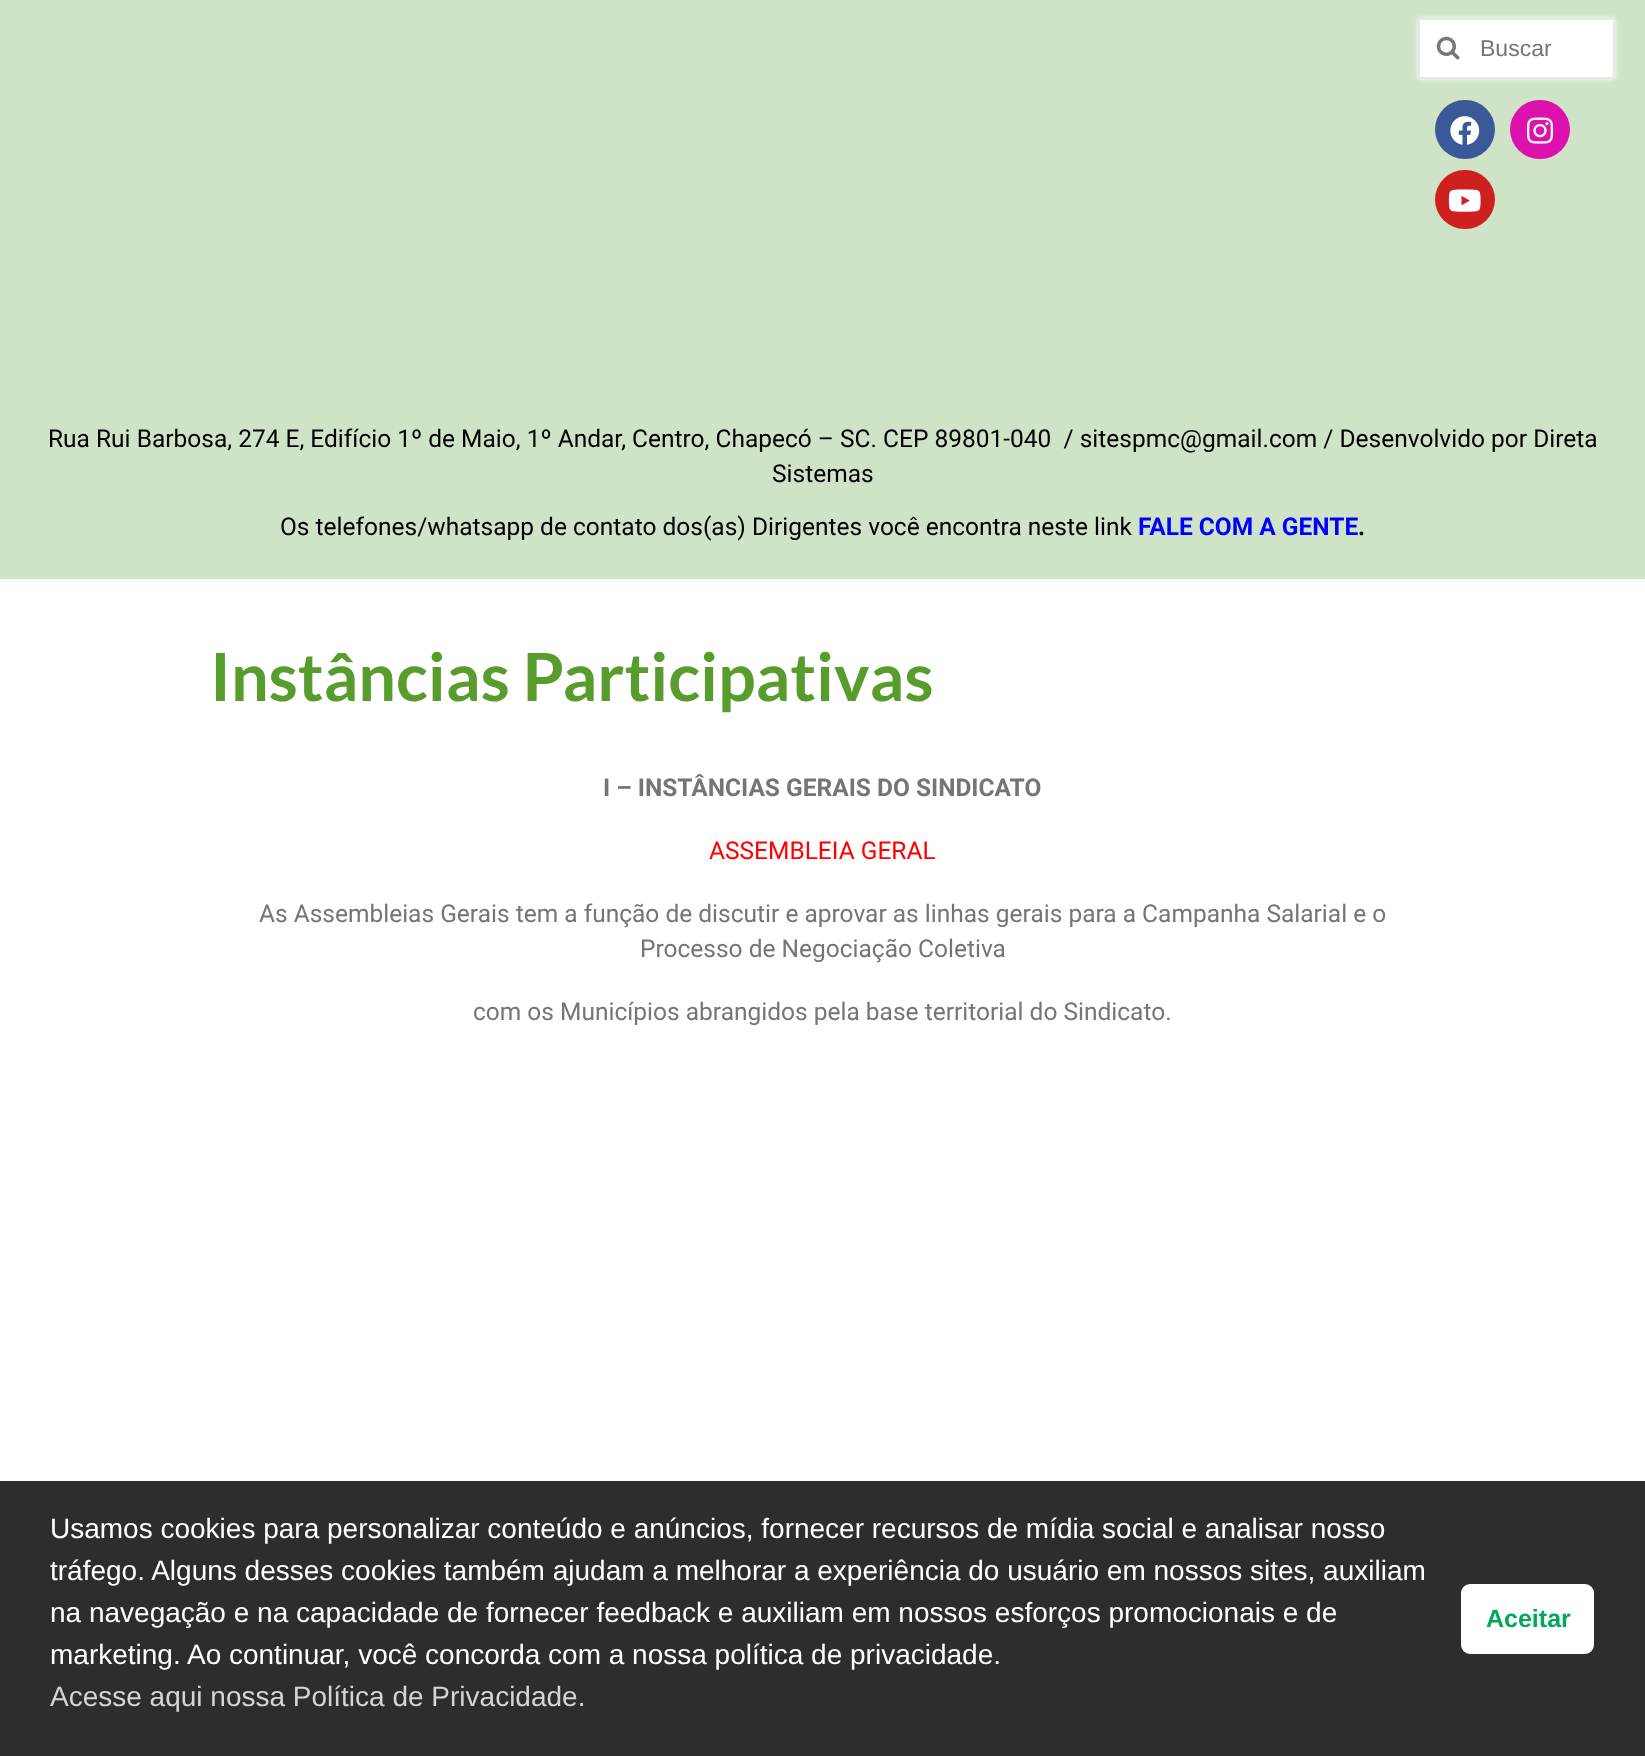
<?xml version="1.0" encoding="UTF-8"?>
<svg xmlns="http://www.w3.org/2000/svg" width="1645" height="1756">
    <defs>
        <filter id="blur1" x="-50%" y="-200%" width="200%" height="500%"><feGaussianBlur stdDeviation="2.5"/></filter>
    </defs>
    <rect width="100%" height="100%" fill="#FFFFFF"/>
    <rect x="0" y="0" width="1645" height="579" fill="#CFE3C7"/>
    <rect x="1418" y="18" width="197" height="61" fill="#FFFFFF" filter="url(#blur1)"/>
    <rect x="1419" y="19" width="195" height="59" fill="#FFFFFF" stroke="#E7E7E7" stroke-width="2"/>
    <image x="1436" y="36" width="24" height="24" href="img_01.png"/>
    <text x="1480" y="56" font-family="Liberation Sans" font-size="23" fill="#757575">Buscar</text>
    <rect x="1435" y="100" width="60" height="59" rx="29.5" fill="#3B5998"/>
    <image x="1450" y="116" width="30" height="29" href="img_02.png"/>
    <rect x="1510" y="100" width="60" height="59" rx="29.5" fill="#DD12AE"/>
    <image x="1527" y="117" width="27" height="27" href="img_03.png"/>
    <rect x="1435" y="170" width="60" height="59" rx="29.5" fill="#CD201F"/>
    <image x="1448" y="189" width="33" height="23" href="img_04.png"/>
    <text x="48" y="447" font-family="Roboto" font-size="24.5" fill="#000000" xml:space="preserve">Rua Rui Barbosa, 274 E, Edifício 1º de Maio, 1º Andar, Centro, Chapecó – SC. CEP 89801-040  / sitespmc@gmail.com / Desenvolvido por Direta</text>
    <text x="772" y="482" font-family="Roboto" font-size="24.5" fill="#000000">Sistemas</text>
    <text x="280" y="535" font-family="Roboto" font-size="24.5" fill="#000000">Os telefones/whatsapp de contato dos(as) Dirigentes você encontra neste link</text>
    <text x="1138" y="535" font-family="Roboto" font-size="24.5" font-weight="700" fill="#0000FF">FALE COM A GENTE</text>
    <text x="1358" y="535" font-family="Roboto" font-size="24.5" font-weight="700" fill="#000000">.</text>
    <text x="210" y="701" font-family="Lato" font-size="66.5" font-weight="700" fill="#579C2D">Instâncias Participativas</text>
    <text x="603" y="796" font-family="Roboto" font-size="24.5" font-weight="700" fill="#757575">I – INSTÂNCIAS GERAIS DO SINDICATO</text>
    <text x="709" y="859" font-family="Roboto" font-size="24.5" fill="#FF0000">ASSEMBLEIA GERAL</text>
    <text x="259" y="922" font-family="Roboto" font-size="24.5" fill="#757575">As Assembleias Gerais tem a função de discutir e aprovar as linhas gerais para a Campanha Salarial e o</text>
    <text x="640" y="957" font-family="Roboto" font-size="24.5" fill="#757575">Processo de Negociação Coletiva</text>
    <text x="473" y="1020" font-family="Roboto" font-size="24.5" fill="#757575">com os Municípios abrangidos pela base territorial do Sindicato.</text>
    <rect x="0" y="1481" width="1645" height="275" fill="#2D2D2D"/>
    <text font-family="Liberation Sans" font-size="28" fill="#FFFFFF">
        <tspan x="50" y="1538">Usamos cookies para personalizar conteúdo e anúncios, fornecer recursos de mídia social e analisar nosso</tspan>
        <tspan x="50" y="1580">tráfego. Alguns desses cookies também ajudam a melhorar a experiência do usuário em nossos sites, auxiliam</tspan>
        <tspan x="50" y="1622">na navegação e na capacidade de fornecer feedback e auxiliam em nossos esforços promocionais e de</tspan>
        <tspan x="50" y="1664">marketing. Ao continuar, você concorda com a nossa política de privacidade.</tspan>
    </text>
    <text x="50" y="1706" font-family="Liberation Sans" font-size="28" fill="#D5D5D5">Acesse aqui nossa Política de Privacidade.</text>
    <rect x="1461" y="1584" width="133" height="70" rx="9" fill="#FFFFFF"/>
    <text x="1486" y="1627" font-family="Liberation Sans" font-size="25" font-weight="700" fill="#00A95A">Aceitar</text>
</svg>
